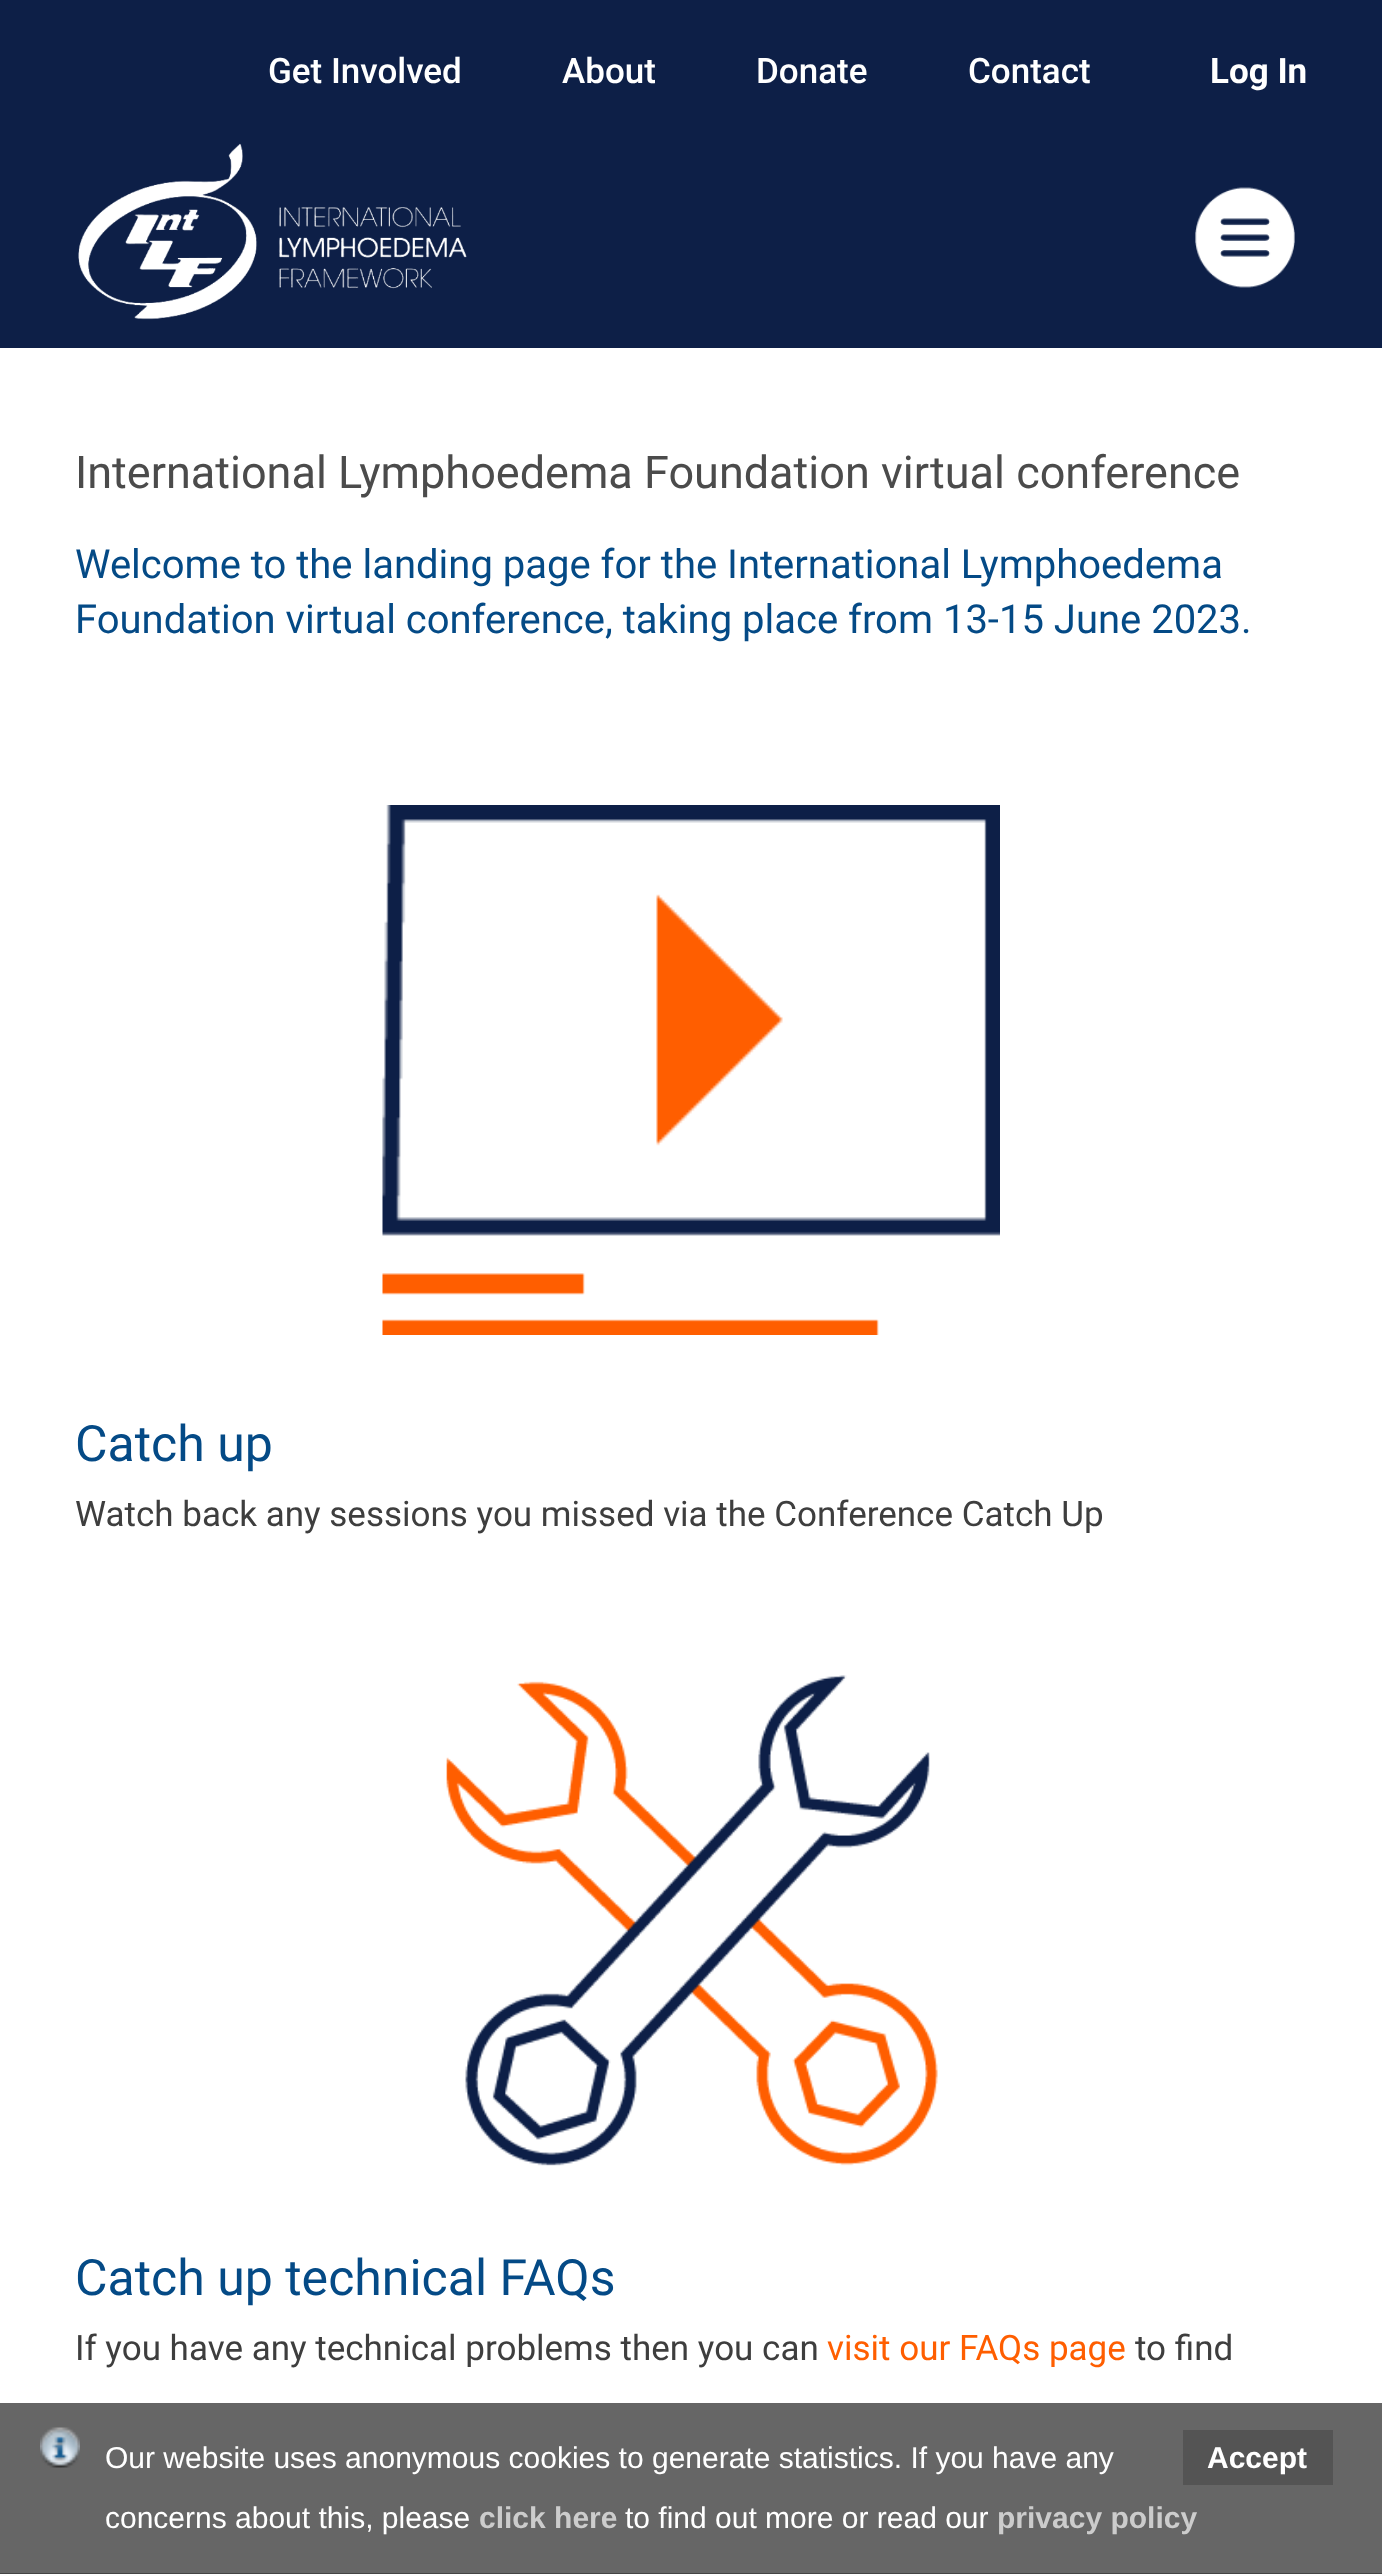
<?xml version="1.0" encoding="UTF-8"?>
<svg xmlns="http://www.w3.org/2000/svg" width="1382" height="2574">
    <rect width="100%" height="100%" fill="#FFFFFF"/>
    <rect x="0" y="0" width="1382" height="348" fill="#0D1F47"/>
    <text x="268" y="83" font-family="Roboto" font-size="35" font-weight="500" fill="#FFFFFF">Get Involved</text>
    <text x="562" y="83" font-family="Roboto" font-size="35" font-weight="500" fill="#FFFFFF">About</text>
    <text x="756" y="83" font-family="Roboto" font-size="35" font-weight="500" fill="#FFFFFF">Donate</text>
    <text x="968" y="83" font-family="Roboto" font-size="35" font-weight="500" fill="#FFFFFF">Contact</text>
    <text x="1210" y="83" font-family="Roboto" font-size="35" font-weight="700" fill="#FFFFFF">Log In</text>
    <image x="78" y="143" width="389" height="177" href="img_01.png"/>
    <image x="1195" y="187" width="100" height="101" href="img_02.png"/>
    <text x="75" y="488" font-family="Roboto" font-size="45" fill="#4B4B4B">International Lymphoedema Foundation virtual conference</text>
    <text font-family="Roboto" font-size="40" fill="#044A86">
        <tspan x="75" y="578">Welcome to the landing page for the International Lymphoedema</tspan>
        <tspan x="75" y="633">Foundation virtual conference, taking place from 13-15 June 2023.</tspan>
    </text>
    <image x="382" y="805" width="618" height="530" href="img_03.png"/>
    <text x="75" y="1461" font-family="Roboto" font-size="50" fill="#044A86">Catch up</text>
    <text x="75" y="1526" font-family="Roboto" font-size="35" fill="#3E3E3E">Watch back any sessions you missed via the Conference Catch Up</text>
    <image x="446" y="1675" width="492" height="491" href="img_04.png"/>
    <text x="75" y="2295" font-family="Roboto" font-size="50" fill="#044A86">Catch up technical FAQs</text>
    <text x="75" y="2360" font-family="Roboto" font-size="35" fill="#3E3E3E">If you have any technical problems then you can</text>
    <text x="827" y="2360" font-family="Roboto" font-size="35" fill="#FF5E00">visit our FAQs page</text>
    <text x="1135" y="2360" font-family="Roboto" font-size="35" fill="#3E3E3E">to find</text>
    <rect x="0" y="2403" width="1382" height="170" fill="#666666"/>
    <rect x="0" y="2573" width="1382" height="1" fill="#444444"/>
    <image x="40" y="2427" width="40" height="41" href="img_05.png"/>
    <text x="105" y="2468" font-family="Liberation Sans" font-size="30" fill="#FFFFFF">Our website uses anonymous cookies to generate statistics. If you have any</text>
    <text x="105" y="2528" font-family="Liberation Sans" font-size="30" fill="#FFFFFF">concerns about this, please</text>
    <text x="479" y="2528" font-family="Liberation Sans" font-size="30" font-weight="700" fill="#CCCCCC">click here</text>
    <text x="625" y="2528" font-family="Liberation Sans" font-size="30" fill="#FFFFFF">to find out more or read our</text>
    <text x="997" y="2528" font-family="Liberation Sans" font-size="30" font-weight="700" fill="#CCCCCC">privacy policy</text>
    <rect x="1183" y="2430" width="150" height="55" fill="#545454"/>
    <text x="1207" y="2468" font-family="Liberation Sans" font-size="30" font-weight="700" fill="#FFFFFF">Accept</text>
</svg>
